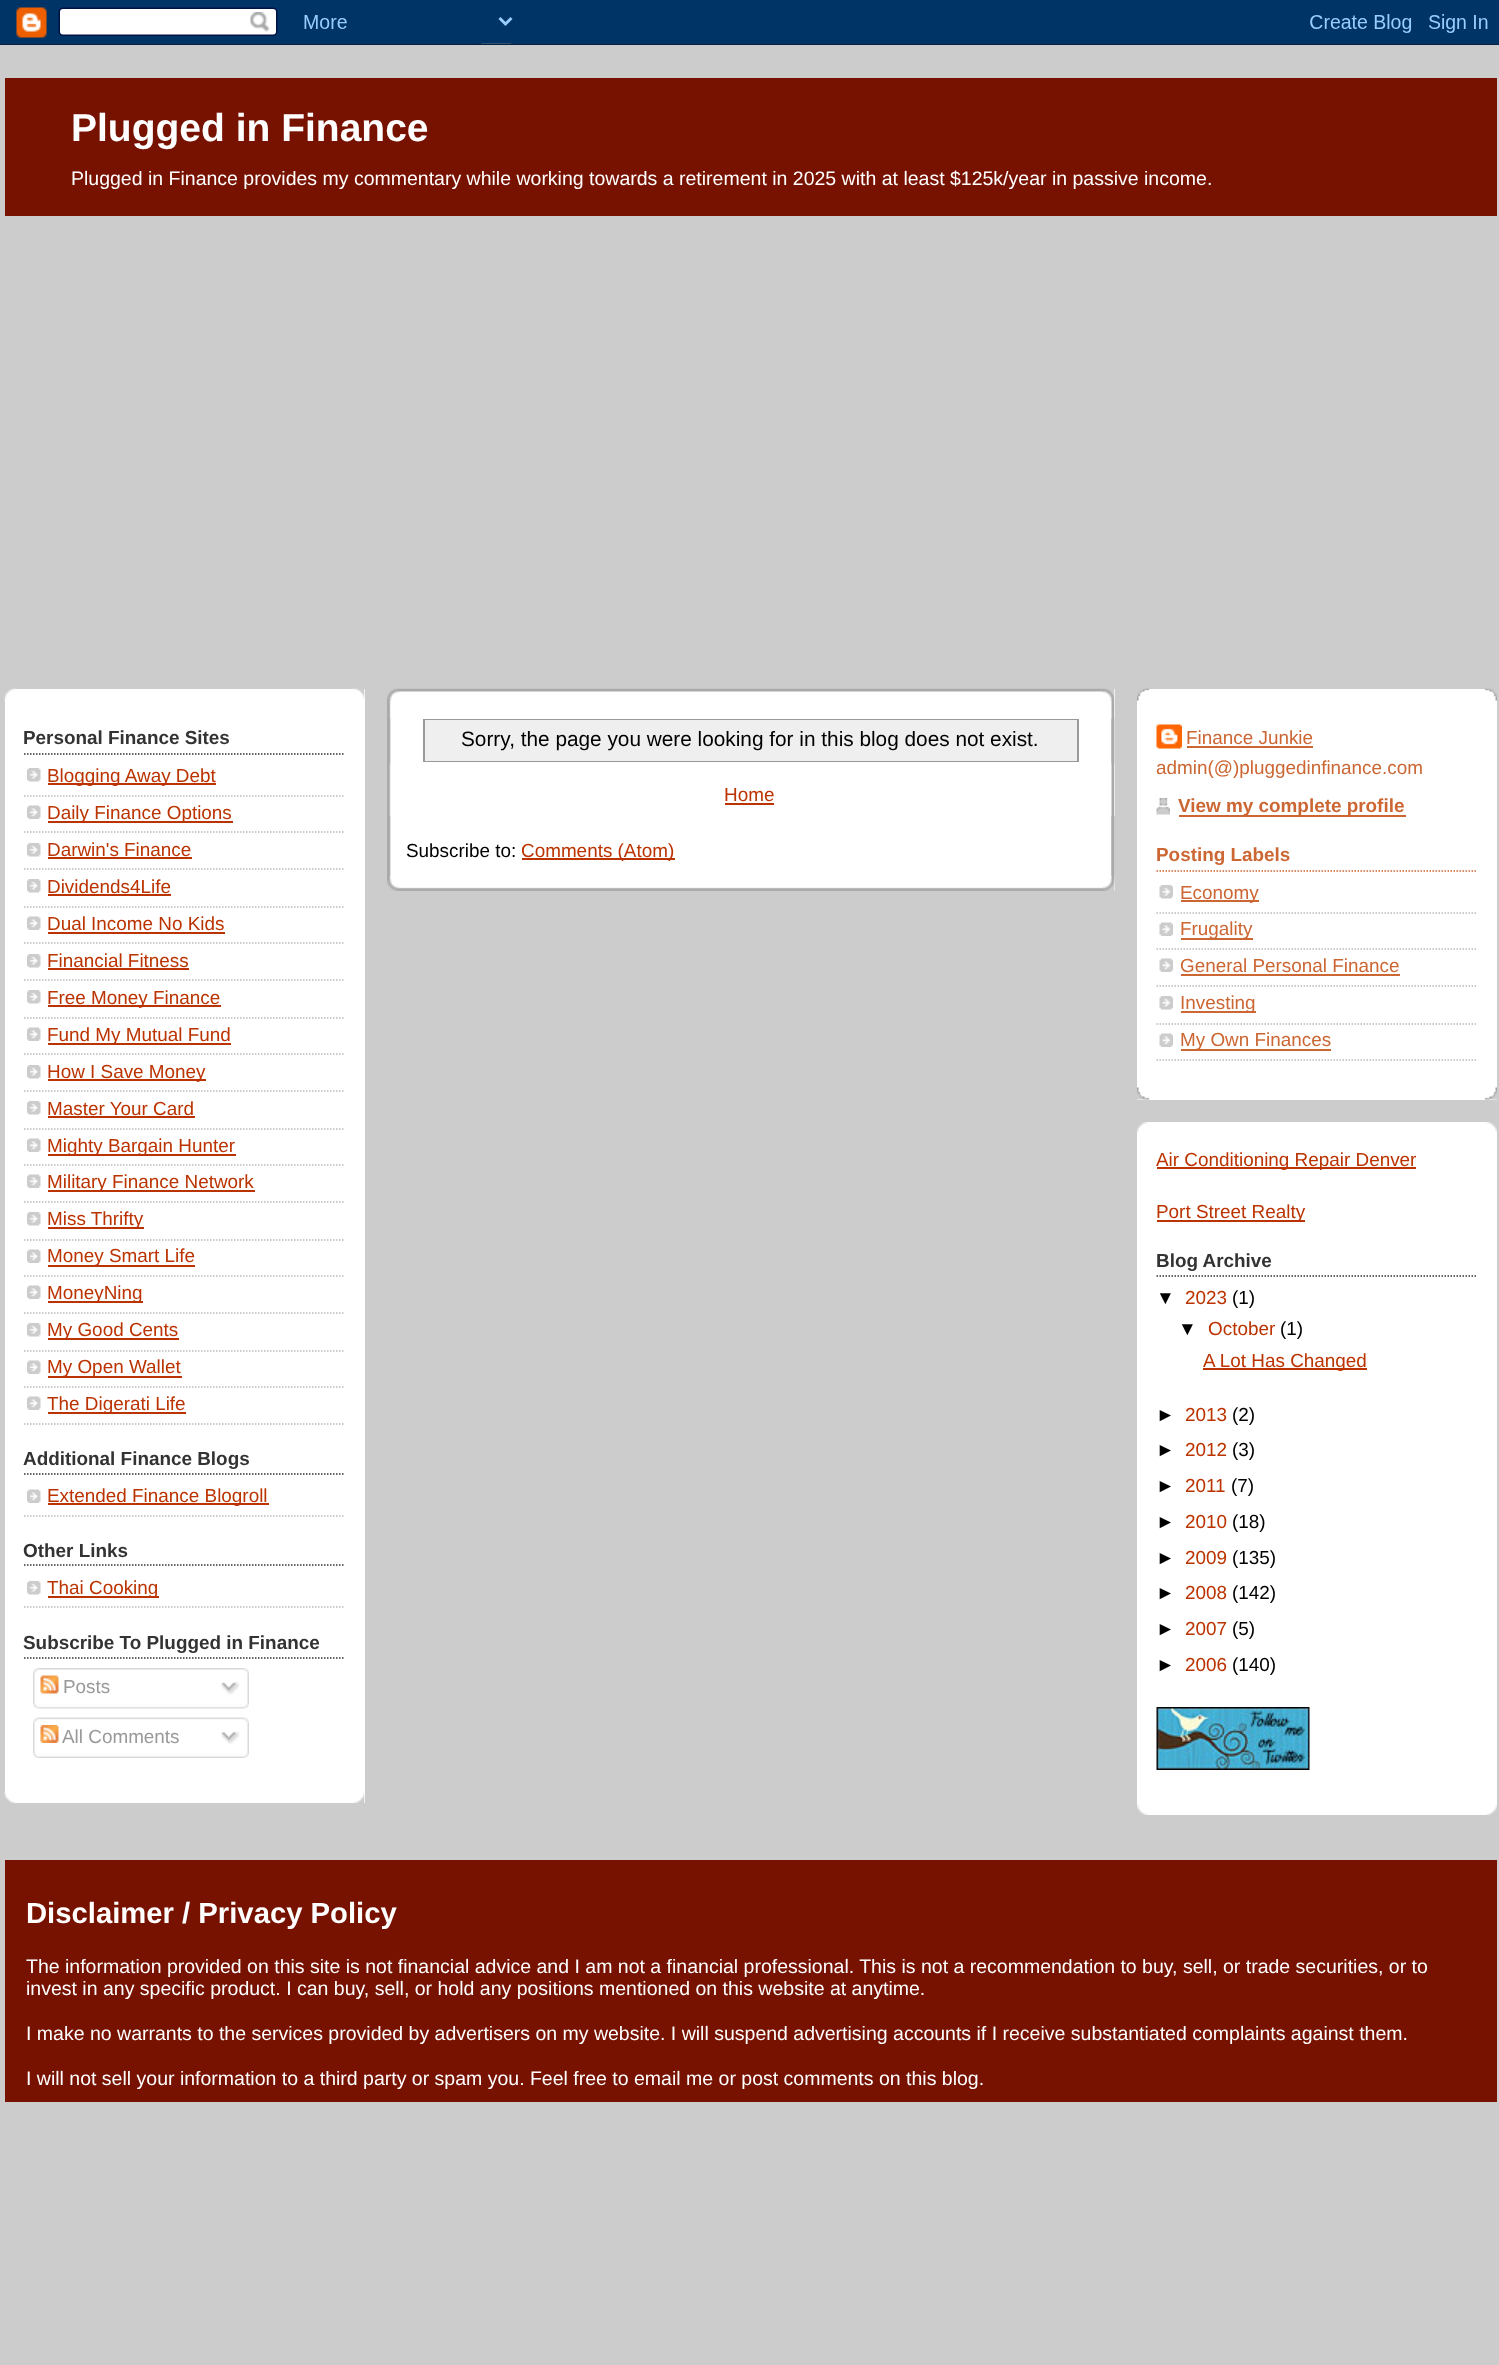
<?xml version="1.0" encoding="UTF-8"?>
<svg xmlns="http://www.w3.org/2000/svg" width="1499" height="2365">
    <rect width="100%" height="100%" fill="#CCCCCC"/>
    <image x="0" y="0" width="1499" height="45" href="img_01.png"/>
    <rect x="5" y="78" width="1492" height="138" fill="#771100"/>
    <text x="71" y="141" font-family="Liberation Sans" font-size="39" font-weight="700" fill="#FFFFFF">Plugged in Finance</text>
    <text x="71" y="185" font-family="Liberation Sans" font-size="19.5" fill="#FFFFFF">Plugged in Finance provides my commentary while working towards a retirement in 2025 with at least $125k/year in passive income.</text>
    <rect x="5" y="689" width="360" height="1114" fill="#FFFFFF"/>
    <image x="4" y="688" width="361" height="13" href="img_02.png"/>
    <image x="4" y="1791" width="361" height="12" href="img_03.png"/>
    <path d="M 24 754 H 345" fill="none" stroke="#333333" stroke-width="1.5" stroke-dasharray="1.5 1.5"/>
    <text x="23" y="744" font-family="Liberation Sans" font-size="18.9" font-weight="700" fill="#333333">Personal Finance Sites</text>
    <image x="27" y="768" width="14" height="14" href="img_04.png"/>
    <path d="M 24 796 H 345" fill="none" stroke="#BBBBBB" stroke-width="1.5" stroke-dasharray="1.5 1.5"/>
    <rect x="48" y="783" width="168" height="2" fill="#BB3300"/>
    <text x="47" y="782" font-family="Liberation Sans" font-size="18.9" fill="#BB3300">Blogging Away Debt</text>
    <image x="27" y="805" width="14" height="14" href="img_05.png"/>
    <path d="M 24 832 H 345" fill="none" stroke="#BBBBBB" stroke-width="1.5" stroke-dasharray="1.5 1.5"/>
    <rect x="48" y="821" width="185" height="2" fill="#BB3300"/>
    <text x="47" y="819" font-family="Liberation Sans" font-size="18.9" fill="#BB3300">Daily Finance Options</text>
    <image x="27" y="843" width="14" height="14" href="img_04.png"/>
    <path d="M 24 869 H 345" fill="none" stroke="#BBBBBB" stroke-width="1.5" stroke-dasharray="1.5 1.5"/>
    <text x="47" y="856" font-family="Liberation Sans" font-size="18.9" fill="#BB3300">Darwin's Finance</text>
    <rect x="48" y="857" width="144" height="2" fill="#BB3300"/>
    <image x="27" y="879" width="14" height="14" href="img_04.png"/>
    <path d="M 24 907 H 345" fill="none" stroke="#BBBBBB" stroke-width="1.5" stroke-dasharray="1.5 1.5"/>
    <text x="47" y="893" font-family="Liberation Sans" font-size="18.9" fill="#BB3300">Dividends4Life</text>
    <rect x="48" y="894" width="123" height="2" fill="#BB3300"/>
    <image x="27" y="916" width="14" height="14" href="img_05.png"/>
    <path d="M 24 943 H 345" fill="none" stroke="#BBBBBB" stroke-width="1.5" stroke-dasharray="1.5 1.5"/>
    <text x="47" y="930" font-family="Liberation Sans" font-size="18.9" fill="#BB3300">Dual Income No Kids</text>
    <rect x="48" y="932" width="177" height="2" fill="#BB3300"/>
    <image x="27" y="954" width="14" height="14" href="img_04.png"/>
    <path d="M 24 980 H 345" fill="none" stroke="#BBBBBB" stroke-width="1.5" stroke-dasharray="1.5 1.5"/>
    <text x="47" y="967" font-family="Liberation Sans" font-size="18.9" fill="#BB3300">Financial Fitness</text>
    <rect x="48" y="968" width="141" height="2" fill="#BB3300"/>
    <image x="27" y="990" width="14" height="14" href="img_04.png"/>
    <path d="M 24 1018 H 345" fill="none" stroke="#BBBBBB" stroke-width="1.5" stroke-dasharray="1.5 1.5"/>
    <rect x="48" y="1005" width="173" height="2" fill="#BB3300"/>
    <text x="47" y="1004" font-family="Liberation Sans" font-size="18.9" fill="#BB3300">Free Money Finance</text>
    <image x="27" y="1027" width="14" height="14" href="img_05.png"/>
    <path d="M 24 1054 H 345" fill="none" stroke="#BBBBBB" stroke-width="1.5" stroke-dasharray="1.5 1.5"/>
    <rect x="48" y="1043" width="183" height="2" fill="#BB3300"/>
    <text x="47" y="1041" font-family="Liberation Sans" font-size="18.9" fill="#BB3300">Fund My Mutual Fund</text>
    <image x="27" y="1065" width="14" height="14" href="img_04.png"/>
    <path d="M 24 1091 H 345" fill="none" stroke="#BBBBBB" stroke-width="1.5" stroke-dasharray="1.5 1.5"/>
    <rect x="48" y="1079" width="158" height="2" fill="#BB3300"/>
    <text x="47" y="1078" font-family="Liberation Sans" font-size="18.9" fill="#BB3300">How I Save Money</text>
    <image x="27" y="1101" width="14" height="14" href="img_04.png"/>
    <path d="M 24 1129 H 345" fill="none" stroke="#BBBBBB" stroke-width="1.5" stroke-dasharray="1.5 1.5"/>
    <text x="47" y="1115" font-family="Liberation Sans" font-size="18.9" fill="#BB3300">Master Your Card</text>
    <rect x="48" y="1116" width="147" height="2" fill="#BB3300"/>
    <image x="27" y="1138" width="14" height="14" href="img_05.png"/>
    <path d="M 24 1165 H 345" fill="none" stroke="#BBBBBB" stroke-width="1.5" stroke-dasharray="1.5 1.5"/>
    <rect x="48" y="1154" width="188" height="2" fill="#BB3300"/>
    <text x="47" y="1152" font-family="Liberation Sans" font-size="18.9" fill="#BB3300">Mighty Bargain Hunter</text>
    <image x="27" y="1174" width="14" height="14" href="img_05.png"/>
    <path d="M 24 1202 H 345" fill="none" stroke="#BBBBBB" stroke-width="1.5" stroke-dasharray="1.5 1.5"/>
    <rect x="48" y="1190" width="207" height="2" fill="#BB3300"/>
    <text x="47" y="1188" font-family="Liberation Sans" font-size="18.9" fill="#BB3300">Military Finance Network</text>
    <image x="27" y="1212" width="14" height="14" href="img_04.png"/>
    <path d="M 24 1240 H 345" fill="none" stroke="#BBBBBB" stroke-width="1.5" stroke-dasharray="1.5 1.5"/>
    <rect x="48" y="1227" width="96" height="2" fill="#BB3300"/>
    <text x="47" y="1225" font-family="Liberation Sans" font-size="18.9" fill="#BB3300">Miss Thrifty</text>
    <image x="27" y="1249" width="14" height="14" href="img_05.png"/>
    <path d="M 24 1276 H 345" fill="none" stroke="#BBBBBB" stroke-width="1.5" stroke-dasharray="1.5 1.5"/>
    <rect x="48" y="1265" width="147" height="2" fill="#BB3300"/>
    <text x="47" y="1262" font-family="Liberation Sans" font-size="18.9" fill="#BB3300">Money Smart Life</text>
    <image x="27" y="1285" width="14" height="14" href="img_05.png"/>
    <path d="M 24 1313 H 345" fill="none" stroke="#BBBBBB" stroke-width="1.5" stroke-dasharray="1.5 1.5"/>
    <rect x="48" y="1301" width="95" height="2" fill="#BB3300"/>
    <text x="47" y="1299" font-family="Liberation Sans" font-size="18.9" fill="#BB3300">MoneyNing</text>
    <image x="27" y="1323" width="14" height="14" href="img_04.png"/>
    <path d="M 24 1351 H 345" fill="none" stroke="#BBBBBB" stroke-width="1.5" stroke-dasharray="1.5 1.5"/>
    <rect x="48" y="1338" width="131" height="2" fill="#BB3300"/>
    <text x="47" y="1336" font-family="Liberation Sans" font-size="18.9" fill="#BB3300">My Good Cents</text>
    <image x="27" y="1360" width="14" height="14" href="img_05.png"/>
    <path d="M 24 1387 H 345" fill="none" stroke="#BBBBBB" stroke-width="1.5" stroke-dasharray="1.5 1.5"/>
    <rect x="48" y="1376" width="134" height="2" fill="#BB3300"/>
    <text x="47" y="1373" font-family="Liberation Sans" font-size="18.9" fill="#BB3300">My Open Wallet</text>
    <image x="27" y="1396" width="14" height="14" href="img_05.png"/>
    <path d="M 24 1424 H 345" fill="none" stroke="#BBBBBB" stroke-width="1.5" stroke-dasharray="1.5 1.5"/>
    <rect x="48" y="1412" width="138" height="2" fill="#BB3300"/>
    <text x="47" y="1410" font-family="Liberation Sans" font-size="18.9" fill="#BB3300">The Digerati Life</text>
    <path d="M 24 1474 H 345" fill="none" stroke="#333333" stroke-width="1.5" stroke-dasharray="1.5 1.5"/>
    <text x="23" y="1465" font-family="Liberation Sans" font-size="18.9" font-weight="700" fill="#333333">Additional Finance Blogs</text>
    <image x="27" y="1489" width="14" height="14" href="img_05.png"/>
    <path d="M 24 1516 H 345" fill="none" stroke="#BBBBBB" stroke-width="1.5" stroke-dasharray="1.5 1.5"/>
    <rect x="48" y="1503" width="221" height="2" fill="#BB3300"/>
    <text x="47" y="1502" font-family="Liberation Sans" font-size="18.9" fill="#BB3300">Extended Finance Blogroll</text>
    <path d="M 24 1565 H 345" fill="none" stroke="#333333" stroke-width="1.5" stroke-dasharray="1.5 1.5"/>
    <text x="23" y="1557" font-family="Liberation Sans" font-size="18.9" font-weight="700" fill="#333333">Other Links</text>
    <image x="27" y="1581" width="14" height="14" href="img_04.png"/>
    <path d="M 24 1607 H 345" fill="none" stroke="#BBBBBB" stroke-width="1.5" stroke-dasharray="1.5 1.5"/>
    <rect x="48" y="1596" width="111" height="2" fill="#BB3300"/>
    <text x="47" y="1594" font-family="Liberation Sans" font-size="18.9" fill="#BB3300">Thai Cooking</text>
    <path d="M 24 1658 H 345" fill="none" stroke="#333333" stroke-width="1.5" stroke-dasharray="1.5 1.5"/>
    <text x="23" y="1649" font-family="Liberation Sans" font-size="18.9" font-weight="700" fill="#333333">Subscribe To Plugged in Finance</text>
    <image x="33" y="1668" width="216" height="36" href="img_06.png"/>
    <image x="40" y="1675" width="19" height="19" href="img_07.png"/>
    <text x="63" y="1693" font-family="Liberation Sans" font-size="18.9" fill="#999999">Posts</text>
    <image x="220" y="1681" width="20" height="14" href="img_08.png"/>
    <image x="33" y="1704" width="216" height="5" href="img_09.png"/>
    <image x="33" y="1717" width="216" height="37" href="img_10.png"/>
    <image x="40" y="1725" width="19" height="18" href="img_11.png"/>
    <text x="62" y="1743" font-family="Liberation Sans" font-size="18.9" fill="#999999">All Comments</text>
    <image x="220" y="1731" width="20" height="14" href="img_12.png"/>
    <image x="33" y="1753" width="216" height="5" href="img_13.png"/>
    <rect x="389" y="689" width="726" height="202" fill="#FFFFFF"/>
    <image x="387" y="816" width="728" height="75" href="img_14.png"/>
    <image x="387" y="688" width="728" height="76" href="img_15.png"/>
    <image x="387" y="718" width="728" height="158" href="img_16.png"/>
    <rect x="424" y="720" width="654" height="41" fill="none" stroke="#999999" stroke-width="2"/>
    <rect x="425" y="720" width="652" height="41" fill="#EFEFEF"/>
    <text x="461" y="746" font-family="Liberation Sans" font-size="20.8" fill="#000000">Sorry, the page you were looking for in this blog does not exist.</text>
    <text x="724" y="801" font-family="Liberation Sans" font-size="18.9" fill="#BB3300">Home</text>
    <rect x="725" y="803" width="49" height="2" fill="#BB3300"/>
    <text x="406" y="857" font-family="Liberation Sans" font-size="18.9" fill="#000000">Subscribe to:</text>
    <rect x="522" y="858" width="153" height="2" fill="#BB3300"/>
    <text x="521" y="857" font-family="Liberation Sans" font-size="18.9" fill="#BB3300">Comments (Atom)</text>
    <rect x="1137" y="689" width="360" height="411" fill="#FFFFFF"/>
    <image x="1137" y="1087" width="360" height="13" href="img_17.png"/>
    <image x="1137" y="688" width="360" height="13" href="img_18.png"/>
    <image x="1156" y="724" width="26" height="25" href="img_19.png"/>
    <text x="1186" y="744" font-family="Liberation Sans" font-size="18.9" fill="#CC6633">Finance Junkie</text>
    <rect x="1187" y="746" width="126" height="2" fill="#CC6633"/>
    <text x="1156" y="774" font-family="Liberation Sans" font-size="18.9" fill="#CC6633">admin(@)pluggedinfinance.com</text>
    <image x="1156" y="798" width="14" height="17" href="img_20.png"/>
    <rect x="1179" y="815" width="227" height="2" fill="#CC6633"/>
    <text x="1178" y="812" font-family="Liberation Sans" font-size="18.9" font-weight="700" fill="#CC6633">View my complete profile</text>
    <path d="M 1156.5 871 H 1477.5" fill="none" stroke="#CC6633" stroke-width="1.5" stroke-dasharray="1.5 1.5"/>
    <text x="1156" y="861" font-family="Liberation Sans" font-size="18.9" font-weight="700" fill="#CC6633">Posting Labels</text>
    <image x="1159" y="885" width="14" height="14" href="img_21.png"/>
    <path d="M 1156.5 913 H 1477.5" fill="none" stroke="#BBBBBB" stroke-width="1.5" stroke-dasharray="1.5 1.5"/>
    <rect x="1181" y="900" width="78" height="2" fill="#CC6633"/>
    <text x="1180" y="899" font-family="Liberation Sans" font-size="18.9" fill="#CC6633">Economy</text>
    <image x="1159" y="922" width="14" height="14" href="img_22.png"/>
    <path d="M 1156.5 949 H 1477.5" fill="none" stroke="#BBBBBB" stroke-width="1.5" stroke-dasharray="1.5 1.5"/>
    <rect x="1181" y="938" width="72" height="2" fill="#CC6633"/>
    <text x="1180" y="935" font-family="Liberation Sans" font-size="18.9" fill="#CC6633">Frugality</text>
    <image x="1159" y="958" width="14" height="14" href="img_22.png"/>
    <path d="M 1156.5 986 H 1477.5" fill="none" stroke="#BBBBBB" stroke-width="1.5" stroke-dasharray="1.5 1.5"/>
    <text x="1180" y="972" font-family="Liberation Sans" font-size="18.9" fill="#CC6633">General Personal Finance</text>
    <rect x="1181" y="974" width="219" height="2" fill="#CC6633"/>
    <image x="1159" y="996" width="14" height="14" href="img_21.png"/>
    <path d="M 1156.5 1024 H 1477.5" fill="none" stroke="#BBBBBB" stroke-width="1.5" stroke-dasharray="1.5 1.5"/>
    <rect x="1181" y="1011" width="75" height="2" fill="#CC6633"/>
    <text x="1180" y="1009" font-family="Liberation Sans" font-size="18.9" fill="#CC6633">Investing</text>
    <image x="1159" y="1033" width="14" height="14" href="img_22.png"/>
    <path d="M 1156.5 1060 H 1477.5" fill="none" stroke="#BBBBBB" stroke-width="1.5" stroke-dasharray="1.5 1.5"/>
    <rect x="1181" y="1049" width="150" height="2" fill="#CC6633"/>
    <text x="1180" y="1046" font-family="Liberation Sans" font-size="18.9" fill="#CC6633">My Own Finances</text>
    <rect x="1137" y="1122" width="360" height="693" fill="#FFFFFF"/>
    <image x="1137" y="1122" width="360" height="11" href="img_23.png"/>
    <image x="1137" y="1804" width="360" height="11" href="img_24.png"/>
    <rect x="1157" y="1167" width="259" height="2" fill="#BB3300"/>
    <text x="1156" y="1166" font-family="Liberation Sans" font-size="18.9" fill="#BB3300">Air Conditioning Repair Denver</text>
    <rect x="1157" y="1220" width="148" height="2" fill="#BB3300"/>
    <text x="1156" y="1218" font-family="Liberation Sans" font-size="18.9" fill="#BB3300">Port Street Realty</text>
    <path d="M 1156.5 1276 H 1477.5" fill="none" stroke="#333333" stroke-width="1.5" stroke-dasharray="1.5 1.5"/>
    <text x="1156" y="1267" font-family="Liberation Sans" font-size="18.9" font-weight="700" fill="#333333">Blog Archive</text>
    <text x="1156" y="1304" font-family="Liberation Sans" font-size="18.9" fill="#000000">▼</text>
    <text x="1185" y="1304" font-family="Liberation Sans" font-size="18.9" fill="#BB3300">2023</text>
    <text x="1232" y="1304" font-family="Liberation Sans" font-size="18.9" fill="#000000">(1)</text>
    <text x="1178" y="1335" font-family="Liberation Sans" font-size="18.9" fill="#000000">▼</text>
    <text x="1208" y="1335" font-family="Liberation Sans" font-size="18.9" fill="#BB3300">October</text>
    <text x="1280" y="1335" font-family="Liberation Sans" font-size="18.9" fill="#000000">(1)</text>
    <rect x="1203" y="1368" width="164" height="2" fill="#BB3300"/>
    <text x="1203" y="1367" font-family="Liberation Sans" font-size="18.9" fill="#BB3300">A Lot Has Changed</text>
    <text x="1156" y="1421" font-family="Liberation Sans" font-size="18.9" fill="#000000">►</text>
    <text x="1185" y="1421" font-family="Liberation Sans" font-size="18.9" fill="#BB3300">2013</text>
    <text x="1232" y="1421" font-family="Liberation Sans" font-size="18.9" fill="#000000">(2)</text>
    <text x="1156" y="1456" font-family="Liberation Sans" font-size="18.9" fill="#000000">►</text>
    <text x="1185" y="1456" font-family="Liberation Sans" font-size="18.9" fill="#BB3300">2012</text>
    <text x="1232" y="1456" font-family="Liberation Sans" font-size="18.9" fill="#000000">(3)</text>
    <text x="1156" y="1492" font-family="Liberation Sans" font-size="18.9" fill="#000000">►</text>
    <text x="1185" y="1492" font-family="Liberation Sans" font-size="18.9" fill="#BB3300">2011</text>
    <text x="1231" y="1492" font-family="Liberation Sans" font-size="18.9" fill="#000000">(7)</text>
    <text x="1156" y="1528" font-family="Liberation Sans" font-size="18.9" fill="#000000">►</text>
    <text x="1185" y="1528" font-family="Liberation Sans" font-size="18.9" fill="#BB3300">2010</text>
    <text x="1232" y="1528" font-family="Liberation Sans" font-size="18.9" fill="#000000">(18)</text>
    <text x="1156" y="1564" font-family="Liberation Sans" font-size="18.9" fill="#000000">►</text>
    <text x="1185" y="1564" font-family="Liberation Sans" font-size="18.9" fill="#BB3300">2009</text>
    <text x="1232" y="1564" font-family="Liberation Sans" font-size="18.9" fill="#000000">(135)</text>
    <text x="1156" y="1599" font-family="Liberation Sans" font-size="18.9" fill="#000000">►</text>
    <text x="1185" y="1599" font-family="Liberation Sans" font-size="18.9" fill="#BB3300">2008</text>
    <text x="1232" y="1599" font-family="Liberation Sans" font-size="18.9" fill="#000000">(142)</text>
    <text x="1156" y="1635" font-family="Liberation Sans" font-size="18.9" fill="#000000">►</text>
    <text x="1185" y="1635" font-family="Liberation Sans" font-size="18.9" fill="#BB3300">2007</text>
    <text x="1232" y="1635" font-family="Liberation Sans" font-size="18.9" fill="#000000">(5)</text>
    <text x="1156" y="1671" font-family="Liberation Sans" font-size="18.9" fill="#000000">►</text>
    <text x="1185" y="1671" font-family="Liberation Sans" font-size="18.9" fill="#BB3300">2006</text>
    <text x="1232" y="1671" font-family="Liberation Sans" font-size="18.9" fill="#000000">(140)</text>
    <image x="1156" y="1707" width="154" height="63" href="img_25.png"/>
    <rect x="5" y="1860" width="1492" height="242" fill="#771100"/>
    <text x="26" y="1923" font-family="Liberation Sans" font-size="29.25" font-weight="700" fill="#FFFFFF">Disclaimer / Privacy Policy</text>
    <text font-family="Liberation Sans" font-size="19.5" fill="#FFFFFF">
        <tspan x="26" y="1973">The information provided on this site is not financial advice and I am not a financial professional. This is not a recommendation to buy, sell, or trade securities, or to</tspan>
        <tspan x="26" y="1995">invest in any specific product. I can buy, sell, or hold any positions mentioned on this website at anytime.</tspan>
    </text>
    <text x="26" y="2040" font-family="Liberation Sans" font-size="19.5" fill="#FFFFFF">I make no warrants to the services provided by advertisers on my website. I will suspend advertising accounts if I receive substantiated complaints against them.</text>
    <text x="26" y="2085" font-family="Liberation Sans" font-size="19.5" fill="#FFFFFF">I will not sell your information to a third party or spam you. Feel free to email me or post comments on this blog.</text>
</svg>
